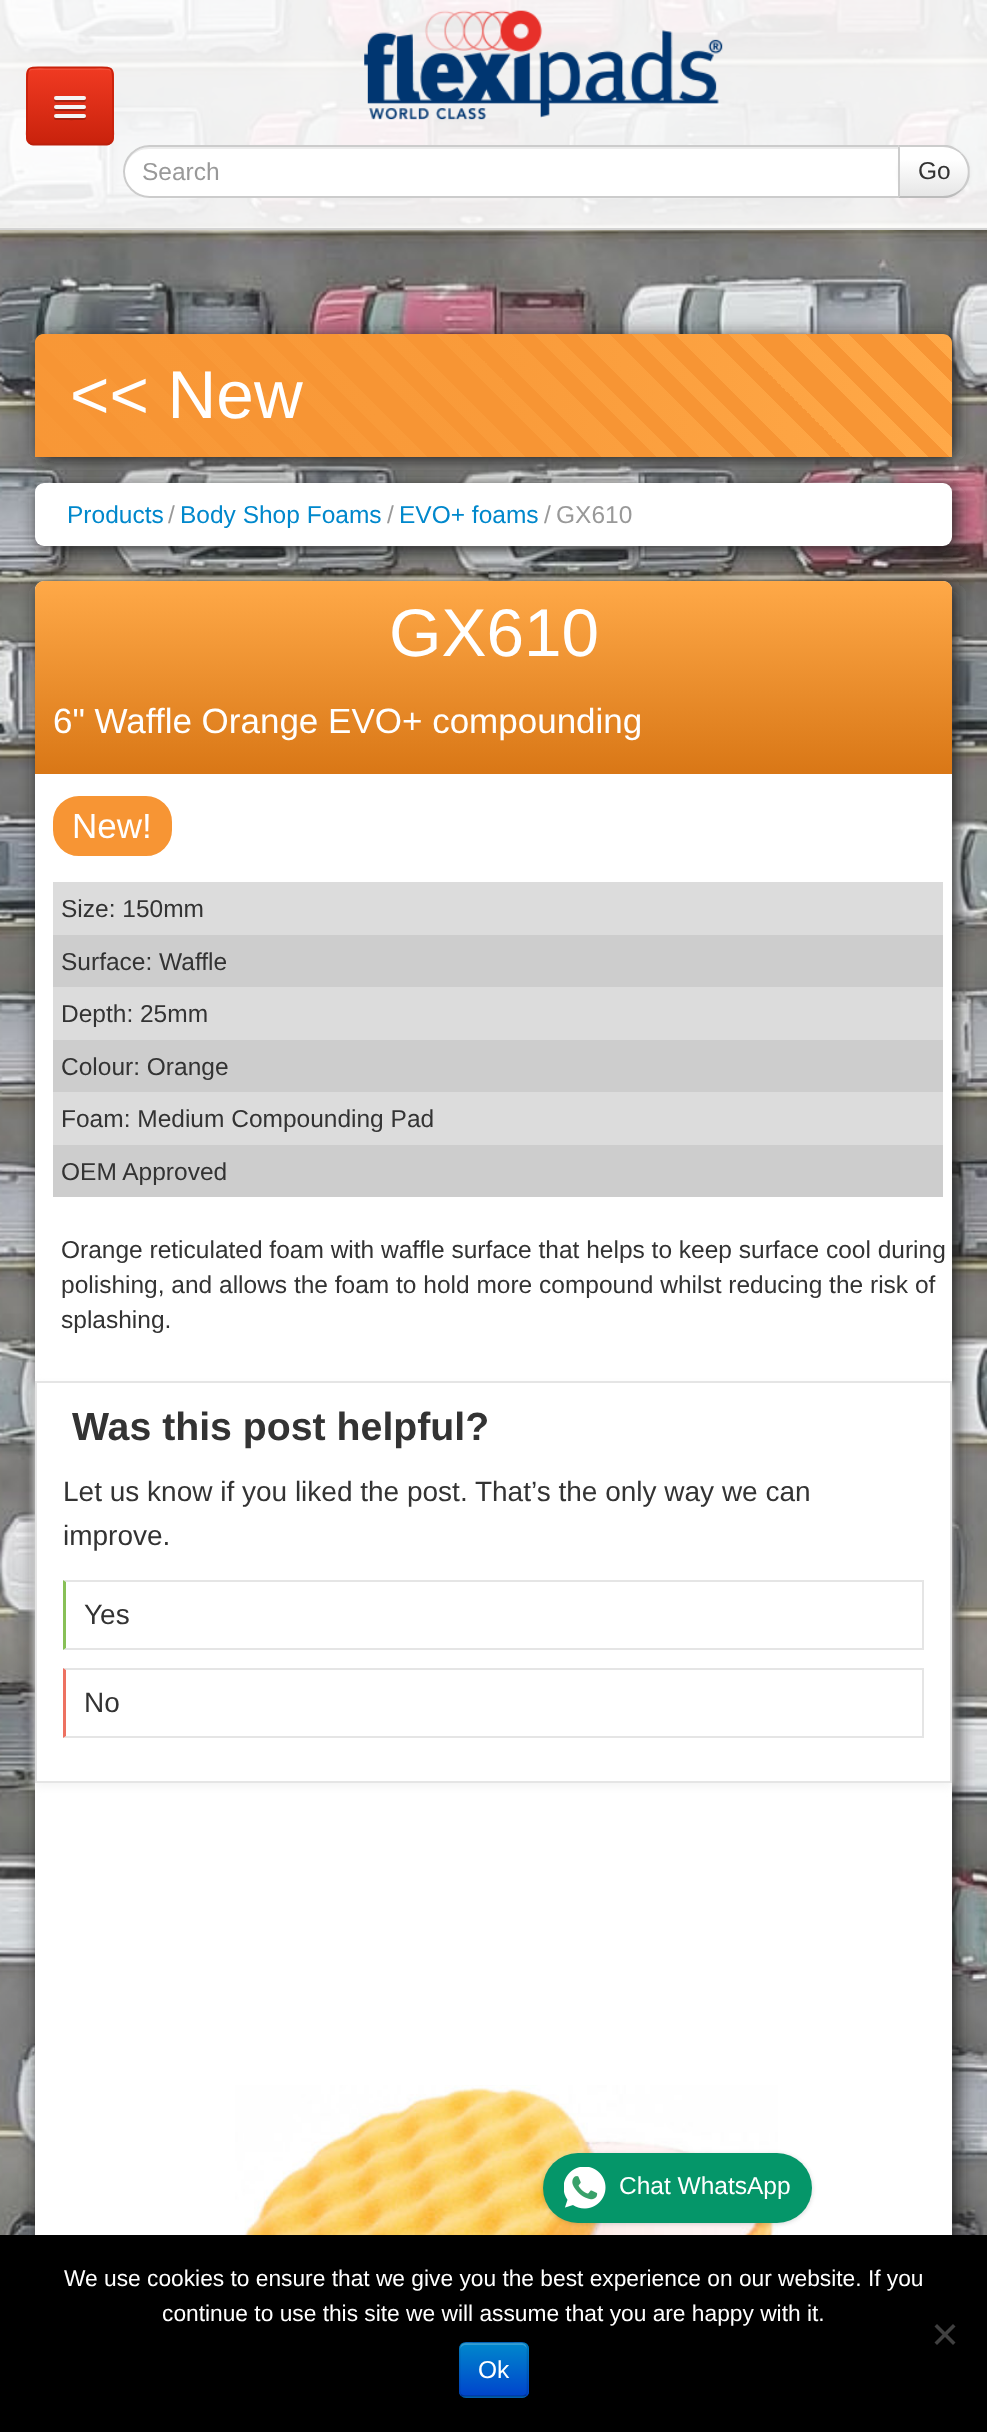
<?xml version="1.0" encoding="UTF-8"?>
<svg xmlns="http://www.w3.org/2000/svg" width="987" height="2432">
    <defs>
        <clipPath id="clip1"><rect x="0" y="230" width="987" height="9"/></clipPath>
        <filter id="blur1" x="-50%" y="-200%" width="200%" height="500%"><feGaussianBlur stdDeviation="9"/></filter>
        <clipPath id="clip2"><rect x="26" y="67" width="88" height="78" rx="7"/></clipPath>
        <linearGradient id="g1" gradientUnits="userSpaceOnUse" x1="70" y1="68" x2="70" y2="144"><stop offset="0" stop-color="#F03A22"/><stop offset="1" stop-color="#C9220C"/></linearGradient>
        <filter id="blur2" x="-50%" y="-200%" width="200%" height="500%"><feGaussianBlur stdDeviation="2"/></filter>
        <clipPath id="clip3"><path d="M 898 145 H 943.5 C 958 145 970 157 970 171.5 C 970 186 958 198 943.5 198 H 898 Z"/></clipPath>
        <linearGradient id="g2" gradientUnits="userSpaceOnUse" x1="934" y1="147" x2="934" y2="196"><stop offset="0" stop-color="#FFFFFF"/><stop offset="0.25" stop-color="#FFFFFF"/><stop offset="1" stop-color="#E6E6E6"/></linearGradient>
        <linearGradient id="g3" gradientUnits="userSpaceOnUse" x1="234" y1="655" x2="778" y2="111"><stop offset="0" stop-color="#F79534"/><stop offset="0.02" stop-color="#F79534"/><stop offset="0.02" stop-color="#FFA948"/><stop offset="0.05" stop-color="#FFA948"/><stop offset="0.05" stop-color="#F79534"/><stop offset="0.07" stop-color="#F79534"/><stop offset="0.07" stop-color="#FFA948"/><stop offset="0.09" stop-color="#FFA948"/><stop offset="0.09" stop-color="#F79534"/><stop offset="0.11" stop-color="#F79534"/><stop offset="0.11" stop-color="#FFA948"/><stop offset="0.14" stop-color="#FFA948"/><stop offset="0.14" stop-color="#F79534"/><stop offset="0.16" stop-color="#F79534"/><stop offset="0.16" stop-color="#FFA948"/><stop offset="0.18" stop-color="#FFA948"/><stop offset="0.18" stop-color="#F79534"/><stop offset="0.2" stop-color="#F79534"/><stop offset="0.2" stop-color="#FFA948"/><stop offset="0.23" stop-color="#FFA948"/><stop offset="0.23" stop-color="#F79534"/><stop offset="0.25" stop-color="#F79534"/><stop offset="0.25" stop-color="#FFA948"/><stop offset="0.27" stop-color="#FFA948"/><stop offset="0.27" stop-color="#F79534"/><stop offset="0.3" stop-color="#F79534"/><stop offset="0.3" stop-color="#FFA948"/><stop offset="0.32" stop-color="#FFA948"/><stop offset="0.32" stop-color="#F79534"/><stop offset="0.34" stop-color="#F79534"/><stop offset="0.34" stop-color="#FFA948"/><stop offset="0.36" stop-color="#FFA948"/><stop offset="0.36" stop-color="#F79534"/><stop offset="0.39" stop-color="#F79534"/><stop offset="0.39" stop-color="#FFA948"/><stop offset="0.41" stop-color="#FFA948"/><stop offset="0.41" stop-color="#F79534"/><stop offset="0.43" stop-color="#F79534"/><stop offset="0.43" stop-color="#FFA948"/><stop offset="0.45" stop-color="#FFA948"/><stop offset="0.45" stop-color="#F79534"/><stop offset="0.48" stop-color="#F79534"/><stop offset="0.48" stop-color="#FFA948"/><stop offset="0.5" stop-color="#FFA948"/><stop offset="0.5" stop-color="#F79534"/><stop offset="0.52" stop-color="#F79534"/><stop offset="0.52" stop-color="#FFA948"/><stop offset="0.55" stop-color="#FFA948"/><stop offset="0.55" stop-color="#F79534"/><stop offset="0.57" stop-color="#F79534"/><stop offset="0.57" stop-color="#FFA948"/><stop offset="0.59" stop-color="#FFA948"/><stop offset="0.59" stop-color="#F79534"/><stop offset="0.61" stop-color="#F79534"/><stop offset="0.61" stop-color="#FFA948"/><stop offset="0.64" stop-color="#FFA948"/><stop offset="0.64" stop-color="#F79534"/><stop offset="0.66" stop-color="#F79534"/><stop offset="0.66" stop-color="#FFA948"/><stop offset="0.68" stop-color="#FFA948"/><stop offset="0.68" stop-color="#F79534"/><stop offset="0.7" stop-color="#F79534"/><stop offset="0.7" stop-color="#FFA948"/><stop offset="0.73" stop-color="#FFA948"/><stop offset="0.73" stop-color="#F79534"/><stop offset="0.75" stop-color="#F79534"/><stop offset="0.75" stop-color="#FFA948"/><stop offset="0.77" stop-color="#FFA948"/><stop offset="0.77" stop-color="#F79534"/><stop offset="0.8" stop-color="#F79534"/><stop offset="0.8" stop-color="#FFA948"/><stop offset="0.82" stop-color="#FFA948"/><stop offset="0.82" stop-color="#F79534"/><stop offset="0.84" stop-color="#F79534"/><stop offset="0.84" stop-color="#FFA948"/><stop offset="0.86" stop-color="#FFA948"/><stop offset="0.86" stop-color="#F79534"/><stop offset="0.89" stop-color="#F79534"/><stop offset="0.89" stop-color="#FFA948"/><stop offset="0.91" stop-color="#FFA948"/><stop offset="0.91" stop-color="#F79534"/><stop offset="0.93" stop-color="#F79534"/><stop offset="0.93" stop-color="#FFA948"/><stop offset="0.95" stop-color="#FFA948"/><stop offset="0.95" stop-color="#F79534"/><stop offset="0.98" stop-color="#F79534"/><stop offset="0.98" stop-color="#FFA948"/><stop offset="1" stop-color="#FFA948"/></linearGradient>
        <linearGradient id="g4" gradientUnits="userSpaceOnUse" x1="35" y1="396" x2="952" y2="395"><stop offset="0" stop-color="#F79534" stop-opacity="0.9"/><stop offset="0.5" stop-color="#F79534" stop-opacity="0.7"/><stop offset="1" stop-color="#F79534" stop-opacity="0"/></linearGradient>
        <linearGradient id="g5" gradientUnits="userSpaceOnUse" x1="494" y1="581" x2="494" y2="774"><stop offset="0" stop-color="#FFA948"/><stop offset="1" stop-color="#D97716"/></linearGradient>
        <clipPath id="clip4"><path d="M 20 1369 H 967 V 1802 H 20 Z M 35 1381 H 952 V 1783 H 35 Z" clip-rule="evenodd"/></clipPath>
        <filter id="blur3" x="-50%" y="-200%" width="200%" height="500%"><feGaussianBlur stdDeviation="4.5"/></filter>
        <filter id="blur4" x="-50%" y="-200%" width="200%" height="500%"><feGaussianBlur stdDeviation="2.5"/></filter>
        <clipPath id="clip5"><rect x="459" y="2342" width="70" height="56" rx="7"/></clipPath>
        <linearGradient id="g6" gradientUnits="userSpaceOnUse" x1="494" y1="2343" x2="494" y2="2396"><stop offset="0" stop-color="#0088CC"/><stop offset="1" stop-color="#0044CC"/></linearGradient>
    </defs>
    <rect width="100%" height="100%" fill="#FFFFFF"/>
    <image x="0" y="0" width="987" height="2235" href="img_01.png"/>
    <g clip-path="url(#clip1)">
        <rect x="0" y="-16" width="987" height="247" fill="#000000" fill-opacity="0.1" filter="url(#blur1)"/>
    </g>
    <rect x="0" y="0" width="987" height="228" fill="#FFFFFF" fill-opacity="0.9"/>
    <rect x="0" y="228" width="987" height="2" fill="#D4D4D4"/>
    <g clip-path="url(#clip2)">
        <rect x="26" y="68" width="88" height="76" fill="url(#g1)"/>
    </g>
    <path d="M 33 70 H 107 C 110 70 112 72 112 75 C 112 65 103 68 95 68 H 45 C 37 68 28 65 28 75 C 28 72 30 70 33 70 Z" fill="#F14E38"/>
    <path d="M 111 142.5 C 110 143.5 108.5 144.5 107 144.5 H 33 C 31.5 144.5 30 143.5 29 142.5" fill="none" stroke="#BB200C" stroke-width="1.8"/>
    <path d="M 29 142.5 C 25.5 139 27 130.5 27 127.5 V 84.5 C 27 65.5 26.5 67.5 45.5 67.5 H 94.5 C 113.5 67.5 113 65.5 113 84.5 V 127.5 C 113 130.5 114.5 139 111 142.5" fill="none" stroke="#C9220C" stroke-width="1.8"/>
    <path d="M 54.5 99 L 54 100.5 C 54.5 103 59.5 102 60.5 102 H 79.5 C 80.5 102 85.5 103 86 100.5 L 85.5 99 C 85.5 99.5 84.5 100 84 100 H 56 C 55.5 100 54.5 99.5 54.5 99 Z" fill="#A72412"/>
    <rect x="54" y="96" width="32" height="4" rx="2" fill="#F5F5F5"/>
    <path d="M 54.5 107.5 C 53.5 109 54 110.5 55.5 111 H 84.5 C 86 110.5 86.5 109 85.5 107.5 L 84 108.5 H 56 Z" fill="#A42211"/>
    <rect x="54" y="105" width="32" height="4" rx="2" fill="#F5F5F5"/>
    <path d="M 54.5 116.5 C 53.5 118 54 120 56 120 C 59.5 120 84 120.5 85 119.5 C 86 119 86.5 117.5 85.5 116.5 L 84 117 H 56 Z" fill="#A1200F"/>
    <rect x="54" y="114" width="32" height="4" rx="2" fill="#F5F5F5"/>
    <image x="364" y="10" width="359" height="110" href="img_02.png"/>
    <path d="M 149.5 145 H 926 V 198 H 149.5 C 135 198 123 186 123 171.5 C 123 157 135 145 149.5 145 Z" fill="#FFFFFF"/>
    <path d="M 149 149 H 924 V 147 H 148 C 132 147 120 163 125 179 C 123 165 131 149 149 149 Z" fill="#ECECEC"/>
    <path d="M 149.5 146 H 925 V 197 H 149.5 C 135.5 197 124 185.5 124 171.5 C 124 157.5 135.5 146 149.5 146 Z" fill="none" stroke="#CCCCCC" stroke-width="2"/>
    <text x="142" y="180" font-family="Liberation Sans" font-size="24.5" fill="#999999">Search</text>
    <rect x="898" y="147" width="72" height="53" rx="26.5" fill="#000000" fill-opacity="0.05" filter="url(#blur2)"/>
    <path d="M 898 145 H 943.5 C 958 145 970 157 970 171.5 C 970 186 958 198 943.5 198 H 898 Z" fill="#E6E6E6"/>
    <g clip-path="url(#clip3)">
        <rect x="900" y="147" width="68" height="49" fill="url(#g2)"/>
    </g>
    <path d="M 900 147 V 148 L 898 145 H 947 C 953 146 958 149 962 153 L 961 154 C 956 150 950 147 943 147 Z" fill="#CCCCCC"/>
    <path d="M 969.5 177 C 968.5 182 966 186.5 962 190.5 L 960.5 189 C 970.5 179.5 970 163.5 960.5 154 L 962 153 C 966 156.5 968.5 161.5 969.5 167 Z" fill="#CCCCCC"/>
    <path d="M 898 198 L 900 196 H 943 C 950 196 956 193 961 189 L 962 190 C 958 194 953 197 947 198 Z" fill="#BBBBBB"/>
    <path d="M 898 198 V 146 L 900 148 V 196 Z" fill="#CCCCCC"/>
    <text x="918" y="179" font-family="Liberation Sans" font-size="24.5" fill="#333333">Go</text>
    <rect x="39" y="338" width="917" height="122" rx="9" fill="#222222" filter="url(#blur1)"/>
    <path d="M 44 334 H 943 C 948 334 952 338 952 343 V 457 H 35 V 343 C 35 338 39 334 44 334 Z" fill="url(#g3)"/>
    <path d="M 44 334 H 943 C 948 334 952 338 952 343 V 457 H 35 V 343 C 35 338 39 334 44 334 Z" fill="url(#g4)"/>
    <text x="70" y="418" font-family="Liberation Sans" font-size="67.5" fill="#FFFFFF">&lt;&lt; New</text>
    <rect x="39" y="487" width="917" height="63" rx="9" fill="#222222" filter="url(#blur1)"/>
    <rect x="35" y="483" width="917" height="63" rx="9" fill="#FFFFFF"/>
    <text x="67" y="523" font-family="Liberation Sans" font-size="24.5" fill="#0088CC">Products</text>
    <text x="168" y="523" font-family="Liberation Sans" font-size="24.5" fill="#999999">/</text>
    <text x="180" y="523" font-family="Liberation Sans" font-size="24.5" fill="#0088CC">Body Shop Foams</text>
    <text x="387" y="523" font-family="Liberation Sans" font-size="24.5" fill="#999999">/</text>
    <text x="399" y="523" font-family="Liberation Sans" font-size="24.5" fill="#0088CC">EVO+ foams</text>
    <text x="544" y="523" font-family="Liberation Sans" font-size="24.5" fill="#999999">/</text>
    <text x="556" y="523" font-family="Liberation Sans" font-size="24.5" fill="#999999">GX610</text>
    <rect x="39" y="585" width="917" height="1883" rx="9" fill="#222222" filter="url(#blur1)"/>
    <rect x="35" y="581" width="917" height="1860" rx="9" fill="#FFFFFF"/>
    <path d="M 44 581 H 943 C 948 581 952 585 952 590 V 774 H 35 V 590 C 35 585 39 581 44 581 Z" fill="url(#g5)"/>
    <text x="389" y="656" font-family="Liberation Sans" font-size="67.5" fill="#FFFFFF">GX610</text>
    <text x="53" y="733" font-family="Liberation Sans" font-size="35" fill="#FFFFFF">6" Waffle Orange EVO+ compounding</text>
    <rect x="54" y="797" width="117" height="58" rx="25" fill="#F79534" stroke="#F79534" stroke-width="2"/>
    <text x="72" y="838" font-family="Liberation Sans" font-size="35" fill="#FFFFFF">New!</text>
    <rect x="53" y="882" width="890" height="53" fill="#DCDCDC"/>
    <text x="61" y="917" font-family="Liberation Sans" font-size="24.5" fill="#333333">Size: 150mm</text>
    <rect x="53" y="935" width="890" height="52" fill="#CDCDCD"/>
    <text x="61" y="970" font-family="Liberation Sans" font-size="24.5" fill="#333333">Surface: Waffle</text>
    <rect x="53" y="987" width="890" height="53" fill="#DCDCDC"/>
    <text x="61" y="1022" font-family="Liberation Sans" font-size="24.5" fill="#333333">Depth: 25mm</text>
    <rect x="53" y="1040" width="890" height="52" fill="#CDCDCD"/>
    <text x="61" y="1075" font-family="Liberation Sans" font-size="24.5" fill="#333333">Colour: Orange</text>
    <rect x="53" y="1092" width="890" height="53" fill="#DCDCDC"/>
    <text x="61" y="1127" font-family="Liberation Sans" font-size="24.5" fill="#333333">Foam: Medium Compounding Pad</text>
    <rect x="53" y="1145" width="890" height="52" fill="#CDCDCD"/>
    <text x="61" y="1180" font-family="Liberation Sans" font-size="24.5" fill="#333333">OEM Approved</text>
    <text font-family="Liberation Sans" font-size="24.5" fill="#333333">
        <tspan x="61" y="1258">Orange reticulated foam with waffle surface that helps to keep surface cool during</tspan>
        <tspan x="61" y="1293">polishing, and allows the foam to hold more compound whilst reducing the risk of</tspan>
        <tspan x="61" y="1328">splashing.</tspan>
    </text>
    <g clip-path="url(#clip4)">
        <rect x="35" y="1384" width="917" height="403" fill="#F4F4F4" filter="url(#blur3)"/>
    </g>
    <rect x="36" y="1382" width="915" height="400" fill="none" stroke="#E5E5E5" stroke-width="2"/>
    <text x="72" y="1440" font-family="Liberation Sans" font-size="39.25" font-weight="700" fill="#333333">Was this post helpful?</text>
    <text font-family="Liberation Sans" font-size="28" fill="#333333">
        <tspan x="63" y="1501">Let us know if you liked the post. That’s the only way we can</tspan>
        <tspan x="63" y="1545">improve.</tspan>
    </text>
    <path d="M 63 1580 H 924 L 922 1582 H 66 Z" fill="#E5E5E5"/>
    <rect x="922" y="1580" width="2" height="70" fill="#E5E5E5"/>
    <path d="M 924 1650 H 63 L 66 1648 H 922 Z" fill="#E5E5E5"/>
    <path d="M 63 1650 V 1580 L 66 1582 V 1648 Z" fill="#88C057"/>
    <text x="84" y="1624" font-family="Liberation Sans" font-size="28" fill="#333333">Yes</text>
    <path d="M 63 1668 H 924 L 922 1670 H 66 Z" fill="#E5E5E5"/>
    <rect x="922" y="1668" width="2" height="70" fill="#E5E5E5"/>
    <path d="M 924 1738 H 63 L 66 1736 H 922 Z" fill="#E5E5E5"/>
    <path d="M 63 1738 V 1668 L 66 1670 V 1736 Z" fill="#ED7161"/>
    <text x="84" y="1712" font-family="Liberation Sans" font-size="28" fill="#333333">No</text>
    <image x="235" y="2085" width="543" height="150" href="img_03.png"/>
    <rect x="543" y="2154" width="269" height="70" rx="35" fill="#000000" fill-opacity="0.06" filter="url(#blur2)"/>
    <rect x="543" y="2154" width="269" height="70" rx="35" fill="#000000" fill-opacity="0.1" filter="url(#blur4)"/>
    <rect x="543" y="2153" width="269" height="70" rx="35" fill="#059669"/>
    <image x="564" y="2167" width="42" height="42" href="img_04.png"/>
    <text x="619" y="2194" font-family="Liberation Sans" font-size="24.5" fill="#FFFFFF">Chat WhatsApp</text>
    <rect x="0" y="2235" width="987" height="197" fill="#000000"/>
    <text x="64" y="2286" font-family="Liberation Sans" font-size="22.75" fill="#FFFFFF">We use cookies to ensure that we give you the best experience on our website. If you</text>
    <text x="162" y="2321" font-family="Liberation Sans" font-size="22.75" fill="#FFFFFF">continue to use this site we will assume that you are happy with it.</text>
    <path d="M 953 2324 L 955.5 2326.5 L 937 2345 L 934.5 2342.5 Z" fill="#404040"/>
    <path d="M 934.5 2326.5 L 937 2324 L 955.5 2342.5 L 953 2345 Z" fill="#404040"/>
    <rect x="459" y="2342" width="70" height="56" rx="7" fill="#006DCC"/>
    <g clip-path="url(#clip5)">
        <rect x="459" y="2343" width="70" height="53" fill="url(#g6)"/>
    </g>
    <path d="M 466 2345 H 522 C 524 2345 527 2347 527 2350 C 527 2341 520 2343 512 2343 H 474 C 467 2343 460 2341 460 2350 C 460 2347 463 2345 466 2345 Z" fill="#FFFFFF" fill-opacity="0.2"/>
    <path d="M 526 2395 C 524.5 2396 523 2396.5 521.5 2396.5 H 465.5 C 464 2396.5 462.5 2396 461 2395" fill="none" stroke="#000000" stroke-opacity="0.25" stroke-width="1.8"/>
    <path d="M 461 2395 C 460 2393.5 459.5 2392 459.5 2390.5 V 2348.5 C 459.5 2347 460 2345.5 461 2344 C 462.5 2343 464 2342.5 465.5 2342.5 H 521.5 C 523 2342.5 524.5 2343 526 2344 C 527 2345.5 527.5 2347 527.5 2348.5 V 2390.5 C 527.5 2392 527 2393.5 526 2395" fill="none" stroke="#000000" stroke-opacity="0.1" stroke-width="1.8"/>
    <text x="478" y="2378" font-family="Liberation Sans" font-size="24.5" fill="#FFFFFF">Ok</text>
</svg>
